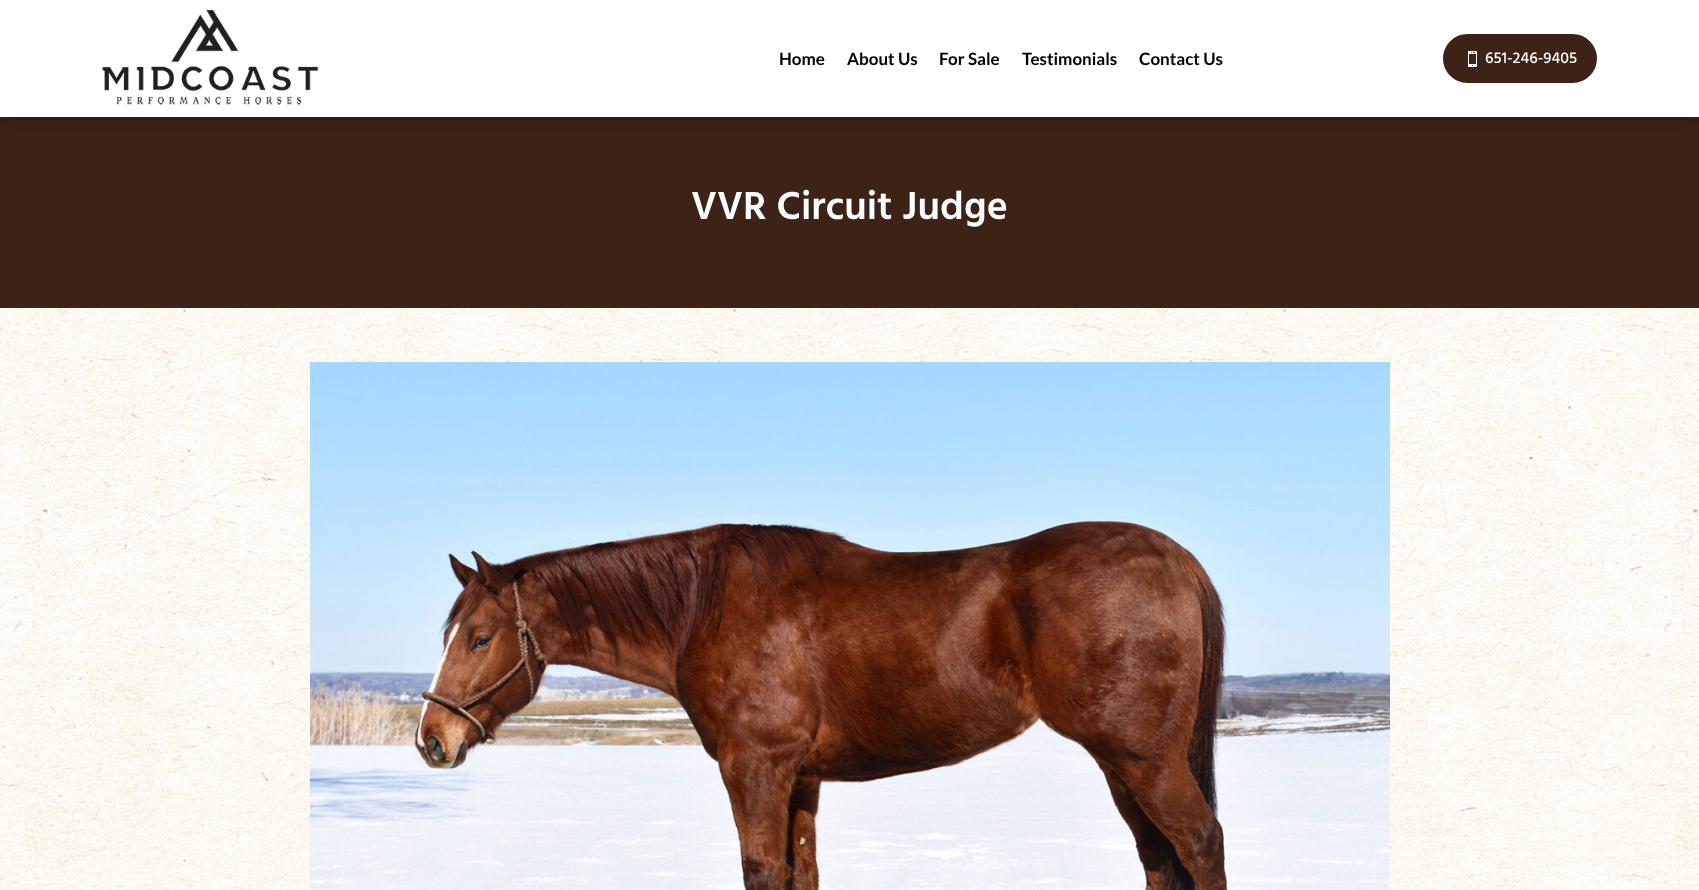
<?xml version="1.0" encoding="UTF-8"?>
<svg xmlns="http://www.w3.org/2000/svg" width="1699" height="890">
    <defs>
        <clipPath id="clip1"><rect x="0" y="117" width="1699" height="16"/></clipPath>
        <filter id="blur1" x="-50%" y="-200%" width="200%" height="500%"><feGaussianBlur stdDeviation="9"/></filter>
    </defs>
    <rect width="100%" height="100%" fill="#FFFFFF"/>
    <rect x="0" y="117" width="1699" height="191" fill="#3D2317"/>
    <g clip-path="url(#clip1)">
        <rect x="0" y="2" width="1699" height="117" fill="#000000" fill-opacity="0.3" filter="url(#blur1)"/>
    </g>
    <image x="102" y="10" width="217" height="95" href="img_01.png"/>
    <text x="779" y="65" font-family="Lato" font-size="17" font-weight="700" fill="#000000">Home</text>
    <text x="847" y="65" font-family="Lato" font-size="17" font-weight="700" fill="#000000">About Us</text>
    <text x="939" y="65" font-family="Lato" font-size="17" font-weight="700" fill="#000000">For Sale</text>
    <text x="1022" y="65" font-family="Lato" font-size="17" font-weight="700" fill="#000000">Testimonials</text>
    <text x="1139" y="65" font-family="Lato" font-size="17" font-weight="700" fill="#000000">Contact Us</text>
    <rect x="1444" y="35" width="152" height="47" rx="23.5" fill="#3D2317" stroke="#3D2317" stroke-width="2"/>
    <image x="1468" y="51" width="9" height="16" href="img_02.png"/>
    <text x="1485" y="63" font-family="Hind" font-size="16" font-weight="500" fill="#FFFFFF">651-246-9405</text>
    <text x="691" y="219" font-family="Hind" font-size="40" font-weight="600" fill="#FFFFFF">VVR Circuit Judge</text>
    <image x="0" y="308" width="1699" height="582" href="img_03.png"/>
    <image x="310" y="362" width="1080" height="528" href="img_04.png"/>
</svg>
